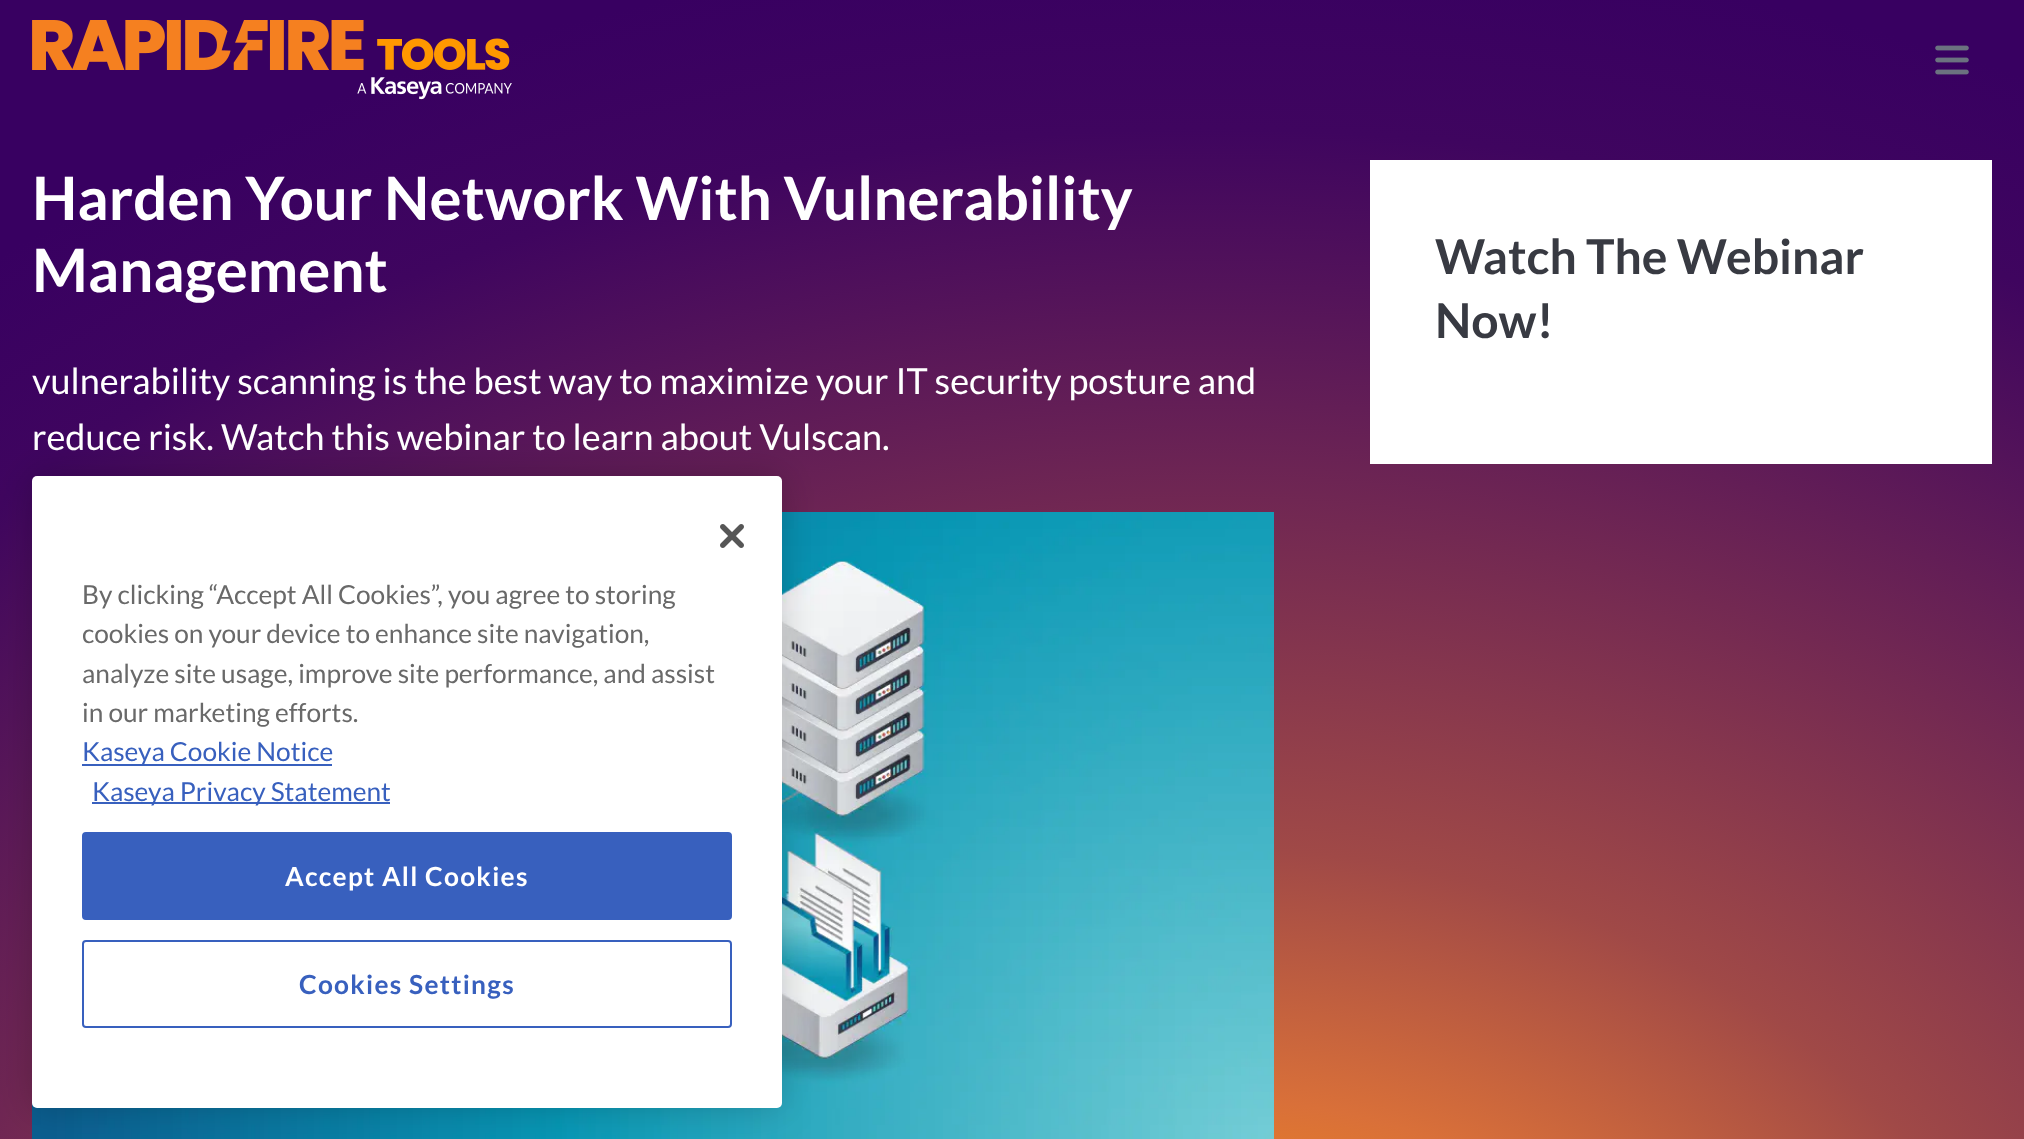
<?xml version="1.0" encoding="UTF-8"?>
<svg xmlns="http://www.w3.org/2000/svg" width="2024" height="1139">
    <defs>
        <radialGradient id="g1" gradientUnits="userSpaceOnUse" cx="0" cy="0" r="1" gradientTransform="matrix(2010 0 0 1565 1207 1506)"><stop offset="0.08" stop-color="#FF9800"/><stop offset="0.26" stop-color="#D97039"/><stop offset="0.42" stop-color="#A04947"/><stop offset="0.63" stop-color="#732952"/><stop offset="0.78" stop-color="#53135A"/><stop offset="0.88" stop-color="#3F055F"/><stop offset="1" stop-color="#380061"/></radialGradient>
        <filter id="blur1" x="-50%" y="-200%" width="200%" height="500%"><feGaussianBlur stdDeviation="18"/></filter>
    </defs>
    <rect width="100%" height="100%" fill="#FFFFFF"/>
    <rect x="0" y="0" width="2024" height="1139" fill="url(#g1)"/>
    <image x="32" y="20" width="480" height="80" href="img_01.png"/>
    <image x="1935" y="45" width="34" height="30" href="img_02.png"/>
    <text font-family="Lato" font-size="60" font-weight="700" fill="#FFFFFF">
        <tspan x="32" y="220">Harden Your Network With Vulnerability</tspan>
        <tspan x="32" y="292">Management</tspan>
    </text>
    <text font-family="Lato" font-size="36" fill="#FFFFFF">
        <tspan x="32" y="394">vulnerability scanning is the best way to maximize your IT security posture and</tspan>
        <tspan x="32" y="450">reduce risk. Watch this webinar to learn about Vulscan.</tspan>
    </text>
    <image x="32" y="512" width="1242" height="627" href="img_03.png"/>
    <rect x="1370" y="160" width="622" height="304" fill="#FFFFFF"/>
    <text font-family="Lato" font-size="48" font-weight="700" fill="#383A42">
        <tspan x="1435" y="274">Watch The Webinar</tspan>
        <tspan x="1435" y="338">Now!</tspan>
    </text>
    <rect x="32" y="476" width="750" height="632" rx="5" fill="#000000" fill-opacity="0.2" filter="url(#blur1)"/>
    <rect x="32" y="476" width="750" height="632" rx="5" fill="#FFFFFF"/>
    <image x="720" y="524" width="24" height="24" href="img_04.png"/>
    <text font-family="Lato" font-size="26.25" fill="#696969">
        <tspan x="82" y="604">By clicking “Accept All Cookies”, you agree to storing</tspan>
        <tspan x="82" y="643">cookies on your device to enhance site navigation,</tspan>
        <tspan x="82" y="683">analyze site usage, improve site performance, and assist</tspan>
        <tspan x="82" y="722">in our marketing efforts.</tspan>
    </text>
    <rect x="82" y="764" width="250" height="2" fill="#3860BE"/>
    <text x="82" y="761" font-family="Lato" font-size="26.25" fill="#3860BE">Kaseya Cookie Notice</text>
    <rect x="92" y="802" width="298" height="2" fill="#3860BE"/>
    <text x="92" y="801" font-family="Lato" font-size="26.25" fill="#3860BE">Kaseya Privacy Statement</text>
    <rect x="83" y="833" width="648" height="86" rx="3" fill="#3860BE" stroke="#3860BE" stroke-width="2"/>
    <text x="285" y="886" font-family="Lato" font-size="26.25" font-weight="700" letter-spacing="1.3" fill="#FFFFFF">Accept All Cookies</text>
    <rect x="83" y="941" width="648" height="86" rx="3" fill="none" stroke="#3860BE" stroke-width="2"/>
    <text x="299" y="994" font-family="Lato" font-size="26.25" font-weight="700" letter-spacing="1.3" fill="#3860BE">Cookies Settings</text>
</svg>
